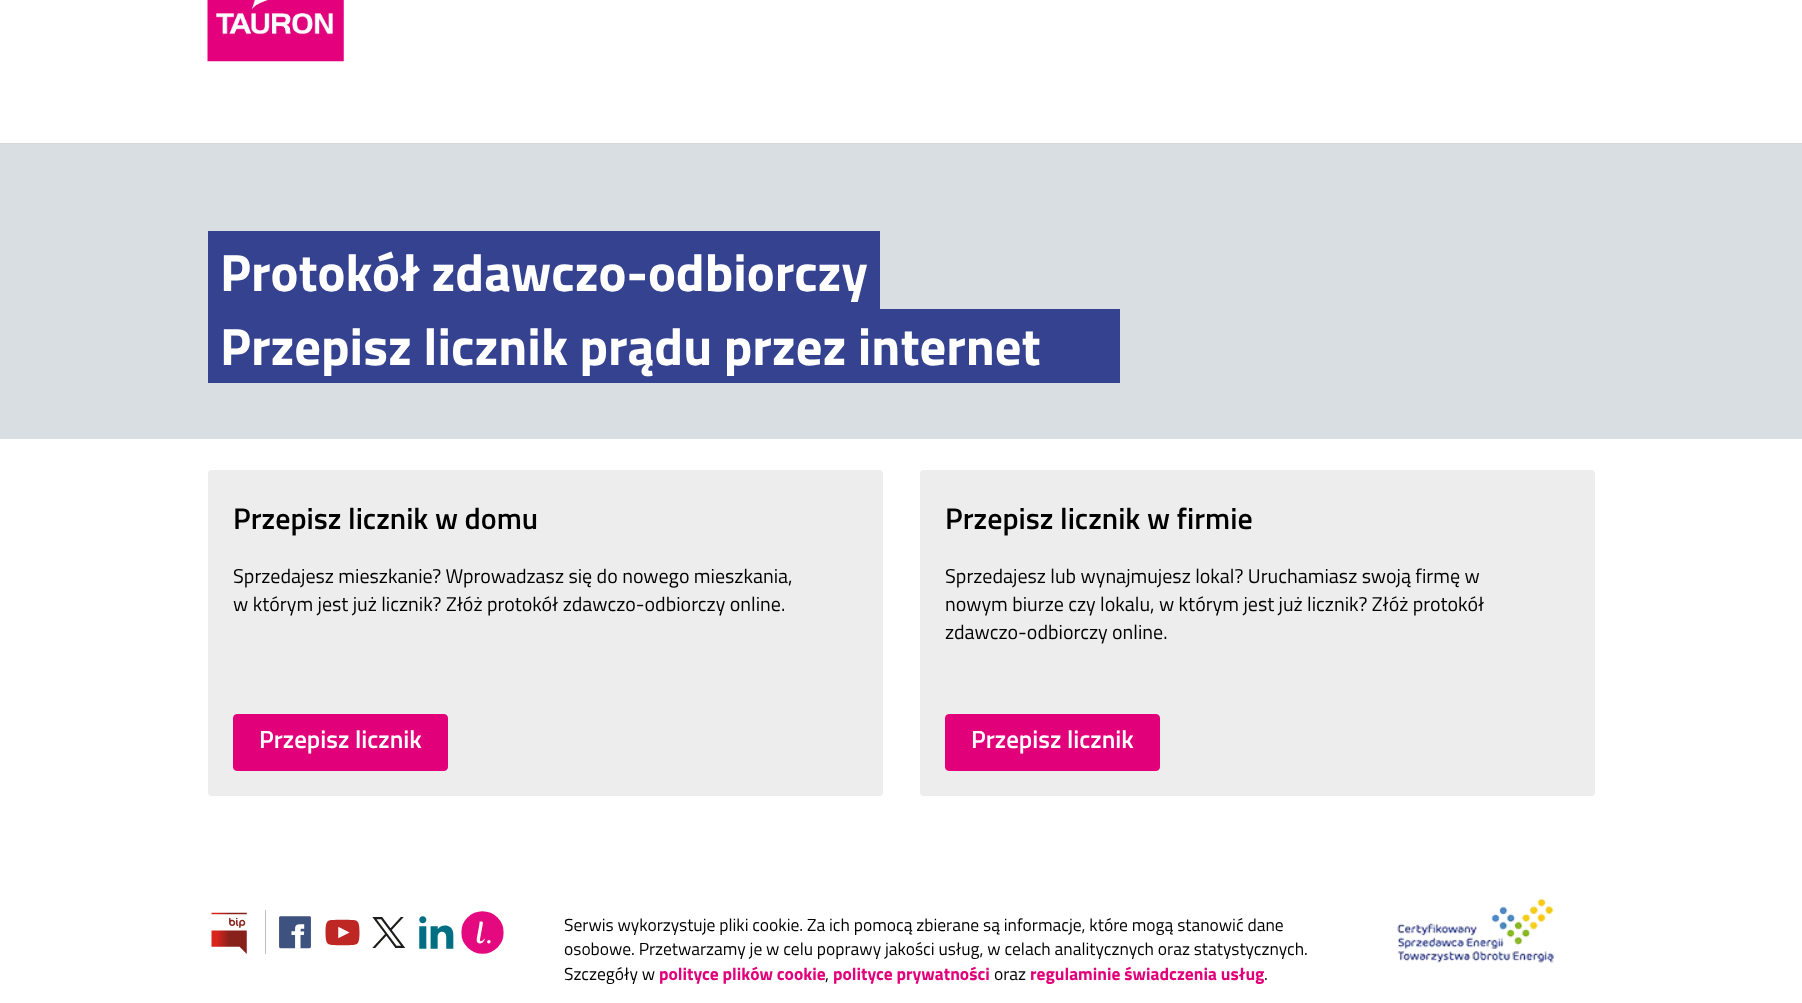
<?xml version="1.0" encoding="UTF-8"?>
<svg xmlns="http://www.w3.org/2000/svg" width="1802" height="1003">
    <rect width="100%" height="100%" fill="#FFFFFF"/>
    <image x="207" y="0" width="137" height="62" href="img_01.png"/>
    <rect x="0" y="144" width="1802" height="295" fill="#D9DEE2"/>
    <rect x="0" y="143" width="1802" height="1" fill="#D4D8DB"/>
    <rect x="208" y="231" width="672" height="78" fill="#344290"/>
    <text x="220" y="291" font-family="Titillium Web" font-size="52.5" font-weight="700" fill="#FFFFFF">Protokół zdawczo-odbiorczy</text>
    <rect x="208" y="309" width="912" height="74" fill="#344290"/>
    <text x="220" y="365" font-family="Titillium Web" font-size="52.5" font-weight="700" fill="#FFFFFF">Przepisz licznik prądu przez internet</text>
    <rect x="208" y="470" width="675" height="326" rx="4" fill="#EDEDED"/>
    <text x="233" y="529" font-family="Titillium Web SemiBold" font-size="30" font-weight="600" fill="#000000">Przepisz licznik w domu</text>
    <text font-family="Titillium Web" font-size="20" fill="#000000">
        <tspan x="233" y="583">Sprzedajesz mieszkanie? Wprowadzasz się do nowego mieszkania,</tspan>
        <tspan x="233" y="611">w którym jest już licznik? Złóż protokół zdawczo-odbiorczy online.</tspan>
    </text>
    <rect x="233.5" y="714.5" width="214" height="56" rx="3.5" fill="#E2007A" stroke="#E2007A"/>
    <text x="259" y="748" font-family="Titillium Web SemiBold" font-size="25" font-weight="600" fill="#FFFFFF">Przepisz licznik</text>
    <rect x="920" y="470" width="675" height="326" rx="4" fill="#EDEDED"/>
    <text x="945" y="529" font-family="Titillium Web SemiBold" font-size="30" font-weight="600" fill="#000000">Przepisz licznik w firmie</text>
    <text font-family="Titillium Web" font-size="20" fill="#000000">
        <tspan x="945" y="583">Sprzedajesz lub wynajmujesz lokal? Uruchamiasz swoją firmę w</tspan>
        <tspan x="945" y="611">nowym biurze czy lokalu, w którym jest już licznik? Złóż protokół</tspan>
        <tspan x="945" y="639">zdawczo-odbiorczy online.</tspan>
    </text>
    <rect x="945.5" y="714.5" width="214" height="56" rx="3.5" fill="#E2007A" stroke="#E2007A"/>
    <text x="971" y="748" font-family="Titillium Web SemiBold" font-size="25" font-weight="600" fill="#FFFFFF">Przepisz licznik</text>
    <image x="211" y="912" width="36" height="42" href="img_02.png"/>
    <rect x="265" y="910" width="1" height="44" fill="#C1BDBA"/>
    <image x="279" y="916" width="32" height="33" href="img_03.png"/>
    <image x="325" y="919" width="35" height="27" href="img_04.png"/>
    <image x="372" y="917" width="34" height="31" href="img_05.png"/>
    <image x="419" y="916" width="35" height="33" href="img_06.png"/>
    <image x="461" y="911" width="43" height="43" href="img_07.png"/>
    <text font-family="Titillium Web" font-size="17.5" fill="#000000">
        <tspan x="564" y="931">Serwis wykorzystuje pliki cookie. Za ich pomocą zbierane są informacje, które mogą stanowić dane</tspan>
        <tspan x="564" y="955">osobowe. Przetwarzamy je w celu poprawy jakości usług, w celach analitycznych oraz statystycznych.</tspan>
        <tspan x="564" y="980">Szczegóły w</tspan>
    </text>
    <text x="659" y="980" font-family="Titillium Web" font-size="17.5" font-weight="700" fill="#E2007A">polityce plików cookie</text>
    <text x="825" y="980" font-family="Titillium Web" font-size="17.5" fill="#000000">,</text>
    <text x="833" y="980" font-family="Titillium Web" font-size="17.5" font-weight="700" fill="#E2007A">polityce prywatności</text>
    <text x="994" y="980" font-family="Titillium Web" font-size="17.5" fill="#000000">oraz</text>
    <text x="1030" y="980" font-family="Titillium Web" font-size="17.5" font-weight="700" fill="#E2007A">regulaminie świadczenia usług</text>
    <text x="1264" y="980" font-family="Titillium Web" font-size="17.5" fill="#000000">.</text>
    <image x="1397" y="898" width="157" height="65" href="img_08.png"/>
</svg>
